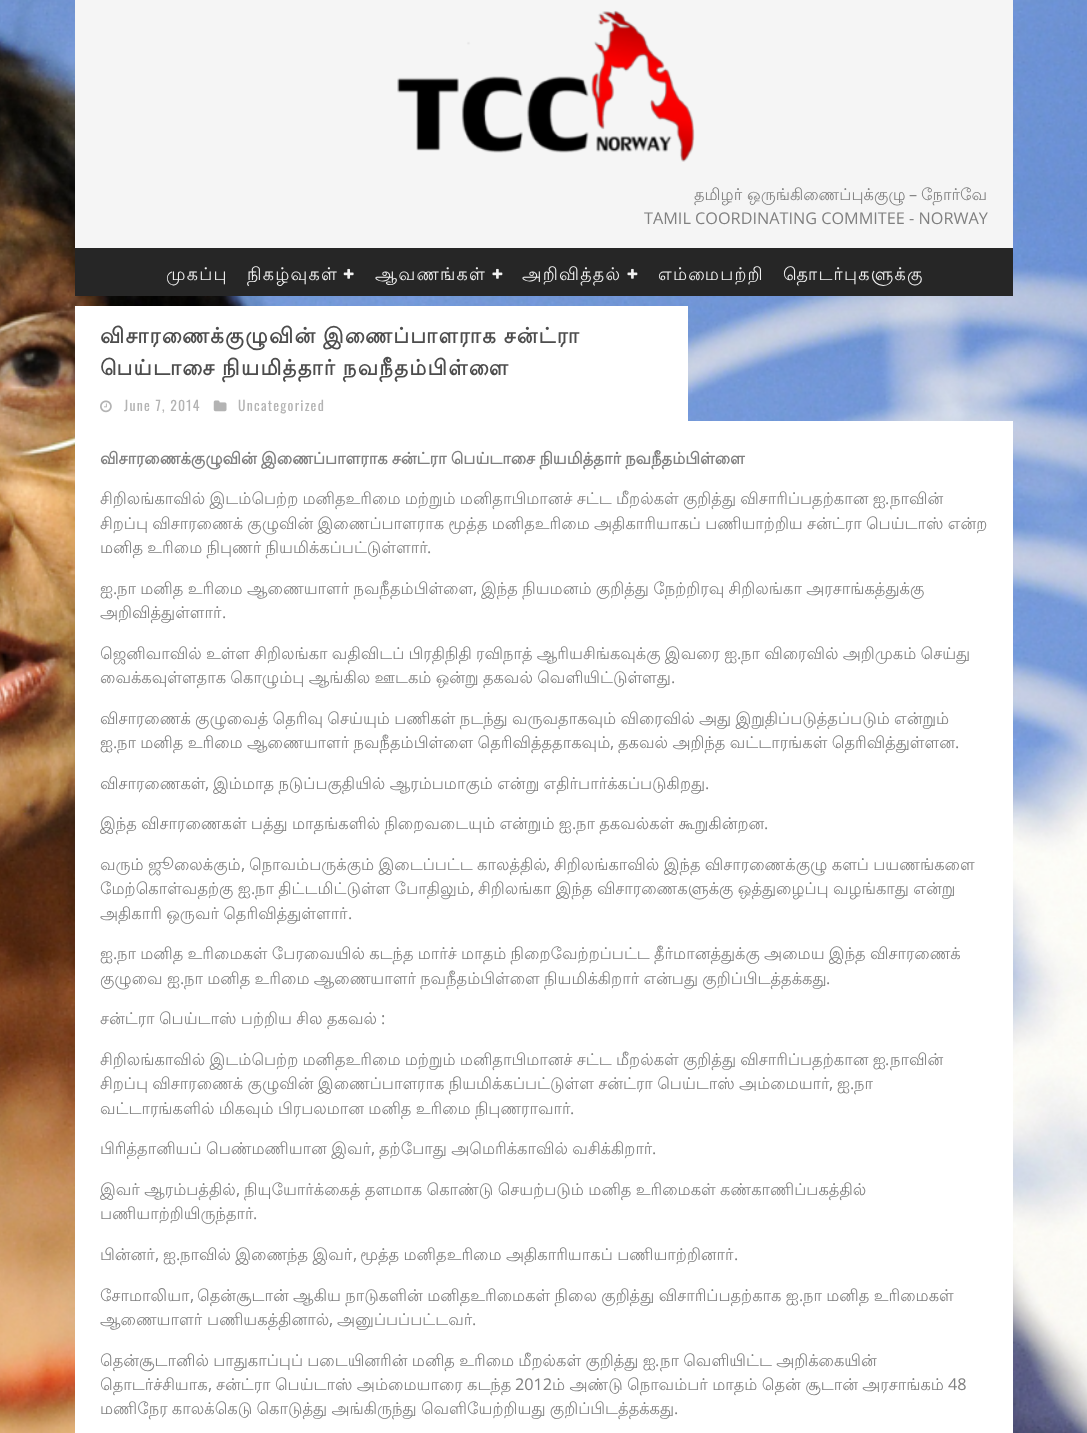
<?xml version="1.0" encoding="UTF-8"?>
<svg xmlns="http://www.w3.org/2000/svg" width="1087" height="1433">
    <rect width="100%" height="100%" fill="#FFFFFF"/>
    <image x="0" y="0" width="1087" height="1433" href="img_04.png"/>
    <rect x="75" y="0" width="938" height="248" fill="#F5F5F5"/>
    <image x="397" y="10" width="298" height="152" href="img_01.png"/>
    <text x="694" y="200" font-family="Lohit Tamil" font-size="16.25" fill="#808080">தமிழர் ஒருங்கிணைப்புக்குழு</text>
    <text x="909" y="200" font-family="Open Sans" font-size="16.25" fill="#808080">–</text>
    <text x="921" y="200" font-family="Lohit Tamil" font-size="16.25" fill="#808080">நோர்வே</text>
    <text x="644" y="224" font-family="Open Sans" font-size="16.25" fill="#808080">TAMIL COORDINATING COMMITEE - NORWAY</text>
    <rect x="75" y="248" width="938" height="48" fill="#262626"/>
    <text x="166" y="280" font-family="Lohit Tamil" font-size="17.5" letter-spacing="1.25" fill="#F2F2F2">முகப்பு</text>
    <text x="247" y="280" font-family="Lohit Tamil" font-size="17.5" letter-spacing="1.25" fill="#F2F2F2">நிகழ்வுகள்</text>
    <image x="343" y="268" width="11" height="11" href="img_02.png"/>
    <text x="375" y="280" font-family="Lohit Tamil" font-size="17.5" letter-spacing="1.25" fill="#F2F2F2">ஆவணங்கள்</text>
    <image x="492" y="268" width="11" height="11" href="img_03.png"/>
    <text x="522" y="280" font-family="Lohit Tamil" font-size="17.5" letter-spacing="1.25" fill="#F2F2F2">அறிவித்தல்</text>
    <image x="627" y="268" width="11" height="11" href="img_03.png"/>
    <text x="658" y="280" font-family="Lohit Tamil" font-size="17.5" letter-spacing="1.25" fill="#F2F2F2">எம்மைபற்றி</text>
    <text x="783" y="280" font-family="Lohit Tamil" font-size="17.5" letter-spacing="1.25" fill="#F2F2F2">தொடர்புகளுக்கு</text>
    <rect x="75" y="306" width="613" height="115" fill="#FFFFFF"/>
    <text font-family="Lohit Tamil" font-size="21.25" font-weight="700" letter-spacing="1.25" fill="#4D4D4D">
        <tspan x="100" y="343" word-spacing="-1">விசாரணைக்குழுவின் இணைப்பாளராக சன்ட்ரா</tspan>
        <tspan x="100" y="375" word-spacing="-1">பெய்டாசை நியமித்தார் நவநீதம்பிள்ளை</tspan>
    </text>
    <image x="100" y="400" width="12" height="13" href="img_05.png"/>
    <text x="124" y="411" font-family="Oswald" font-size="13.75" letter-spacing="1.25" fill="#B3B3B3">June 7, 2014</text>
    <image x="213" y="400" width="14" height="12" href="img_06.png"/>
    <text x="238" y="411" font-family="Oswald" font-size="13.75" letter-spacing="1.25" fill="#B3B3B3">Uncategorized</text>
    <rect x="75" y="421" width="938" height="1012" fill="#FFFFFF"/>
    <text x="100" y="464" word-spacing="-0.6" font-family="Lohit Tamil" font-size="16.25" font-weight="700" fill="#808080">விசாரணைக்குழுவின் இணைப்பாளராக சன்ட்ரா பெய்டாசை நியமித்தார் நவநீதம்பிள்ளை</text>
    <text x="100" y="504" word-spacing="-0.6" font-family="Lohit Tamil" font-size="16.25" fill="#808080">சிறிலங்காவில் இடம்பெற்ற மனிதஉரிமை மற்றும் மனிதாபிமானச் சட்ட மீறல்கள் குறித்து விசாரிப்பதற்கான ஐ</text>
    <text x="885" y="504" font-family="Open Sans" font-size="16.25" fill="#808080">.</text>
    <text x="890" y="504" font-family="Lohit Tamil" font-size="16.25" fill="#808080">நாவின்</text>
    <text font-family="Lohit Tamil" font-size="16.25" fill="#808080">
        <tspan x="100" y="529" word-spacing="-0.6">சிறப்பு விசாரணைக் குழுவின் இணைப்பாளராக மூத்த மனிதஉரிமை அதிகாரியாகப் பணியாற்றிய சன்ட்ரா பெய்டாஸ் என்ற</tspan>
        <tspan x="100" y="553" word-spacing="-0.6">மனித உரிமை நிபுணர் நியமிக்கப்பட்டுள்ளார்</tspan>
    </text>
    <text x="427" y="553" font-family="Open Sans" font-size="16.25" fill="#808080">.</text>
    <text x="100" y="594" font-family="Lohit Tamil" font-size="16.25" fill="#808080">ஐ</text>
    <text x="113" y="594" font-family="Open Sans" font-size="16.25" fill="#808080">.</text>
    <text x="117" y="594" word-spacing="-0.5" font-family="Lohit Tamil" font-size="16.25" fill="#808080">நா மனித உரிமை ஆணையாளர் நவநீதம்பிள்ளை</text>
    <text x="473" y="594" font-family="Open Sans" font-size="16.25" fill="#808080">,</text>
    <text x="481" y="594" word-spacing="-0.5" font-family="Lohit Tamil" font-size="16.25" fill="#808080">இந்த நியமனம் குறித்து நேற்றிரவு சிறிலங்கா அரசாங்கத்துக்கு</text>
    <text x="100" y="618" font-family="Lohit Tamil" font-size="16.25" fill="#808080">அறிவித்துள்ளார்</text>
    <text x="222" y="618" font-family="Open Sans" font-size="16.25" fill="#808080">.</text>
    <text x="100" y="659" word-spacing="-0.6" font-family="Lohit Tamil" font-size="16.25" fill="#808080">ஜெனிவாவில் உள்ள சிறிலங்கா வதிவிடப் பிரதிநிதி ரவிநாத் ஆரியசிங்கவுக்கு இவரை ஐ</text>
    <text x="737" y="659" font-family="Open Sans" font-size="16.25" fill="#808080">.</text>
    <text x="741" y="659" word-spacing="-0.6" font-family="Lohit Tamil" font-size="16.25" fill="#808080">நா விரைவில் அறிமுகம் செய்து</text>
    <text x="100" y="683" word-spacing="-0.6" font-family="Lohit Tamil" font-size="16.25" fill="#808080">வைக்கவுள்ளதாக கொழும்பு ஆங்கில ஊடகம் ஒன்று தகவல் வெளியிட்டுள்ளது</text>
    <text x="671" y="683" font-family="Open Sans" font-size="16.25" fill="#808080">.</text>
    <text font-family="Lohit Tamil" font-size="16.25" fill="#808080">
        <tspan x="100" y="724" word-spacing="-0.6">விசாரணைக் குழுவைத் தெரிவு செய்யும் பணிகள் நடந்து வருவதாகவும் விரைவில் அது இறுதிப்படுத்தப்படும் என்றும்</tspan>
        <tspan x="100" y="748">ஐ</tspan>
    </text>
    <text x="113" y="748" font-family="Open Sans" font-size="16.25" fill="#808080">.</text>
    <text x="117" y="748" word-spacing="-0.5" font-family="Lohit Tamil" font-size="16.25" fill="#808080">நா மனித உரிமை ஆணையாளர் நவநீதம்பிள்ளை தெரிவித்ததாகவும்</text>
    <text x="610" y="748" font-family="Open Sans" font-size="16.25" fill="#808080">,</text>
    <text x="618" y="748" word-spacing="-0.5" font-family="Lohit Tamil" font-size="16.25" fill="#808080">தகவல் அறிந்த வட்டாரங்கள் தெரிவித்துள்ளன</text>
    <text x="955" y="748" font-family="Open Sans" font-size="16.25" fill="#808080">.</text>
    <text x="100" y="789" font-family="Lohit Tamil" font-size="16.25" fill="#808080">விசாரணைகள்</text>
    <text x="205" y="789" font-family="Open Sans" font-size="16.25" fill="#808080">,</text>
    <text x="213" y="789" word-spacing="-0.5" font-family="Lohit Tamil" font-size="16.25" fill="#808080">இம்மாத நடுப்பகுதியில் ஆரம்பமாகும் என்று எதிர்பார்க்கப்படுகிறது</text>
    <text x="705" y="789" font-family="Open Sans" font-size="16.25" fill="#808080">.</text>
    <text x="100" y="829" word-spacing="-0.6" font-family="Lohit Tamil" font-size="16.25" fill="#808080">இந்த விசாரணைகள் பத்து மாதங்களில் நிறைவடையும் என்றும் ஐ</text>
    <text x="572" y="829" font-family="Open Sans" font-size="16.25" fill="#808080">.</text>
    <text x="576" y="829" word-spacing="-0.6" font-family="Lohit Tamil" font-size="16.25" fill="#808080">நா தகவல்கள் கூறுகின்றன</text>
    <text x="764" y="829" font-family="Open Sans" font-size="16.25" fill="#808080">.</text>
    <text x="100" y="870" word-spacing="-0.5" font-family="Lohit Tamil" font-size="16.25" fill="#808080">வரும் ஜூலைக்கும்</text>
    <text x="241" y="870" font-family="Open Sans" font-size="16.25" fill="#808080">,</text>
    <text x="249" y="870" word-spacing="-0.5" font-family="Lohit Tamil" font-size="16.25" fill="#808080">நொவம்பருக்கும் இடைப்பட்ட காலத்தில்</text>
    <text x="546" y="870" font-family="Open Sans" font-size="16.25" fill="#808080">,</text>
    <text x="554" y="870" word-spacing="-0.5" font-family="Lohit Tamil" font-size="16.25" fill="#808080">சிறிலங்காவில் இந்த விசாரணைக்குழு களப் பயணங்களை</text>
    <text x="100" y="894" word-spacing="-0.5" font-family="Lohit Tamil" font-size="16.25" fill="#808080">மேற்கொள்வதற்கு ஐ</text>
    <text x="251" y="894" font-family="Open Sans" font-size="16.25" fill="#808080">.</text>
    <text x="255" y="894" word-spacing="-0.5" font-family="Lohit Tamil" font-size="16.25" fill="#808080">நா திட்டமிட்டுள்ள போதிலும்</text>
    <text x="470" y="894" font-family="Open Sans" font-size="16.25" fill="#808080">,</text>
    <text x="478" y="894" word-spacing="-0.5" font-family="Lohit Tamil" font-size="16.25" fill="#808080">சிறிலங்கா இந்த விசாரணைகளுக்கு ஒத்துழைப்பு வழங்காது என்று</text>
    <text x="100" y="919" word-spacing="-0.6" font-family="Lohit Tamil" font-size="16.25" fill="#808080">அதிகாரி ஒருவர் தெரிவித்துள்ளார்</text>
    <text x="348" y="919" font-family="Open Sans" font-size="16.25" fill="#808080">.</text>
    <text x="100" y="959" font-family="Lohit Tamil" font-size="16.25" fill="#808080">ஐ</text>
    <text x="113" y="959" font-family="Open Sans" font-size="16.25" fill="#808080">.</text>
    <text x="117" y="959" word-spacing="-0.6" font-family="Lohit Tamil" font-size="16.25" fill="#808080">நா மனித உரிமைகள் பேரவையில் கடந்த மார்ச் மாதம் நிறைவேற்றப்பட்ட தீர்மானத்துக்கு அமைய இந்த விசாரணைக்</text>
    <text x="100" y="984" word-spacing="-0.6" font-family="Lohit Tamil" font-size="16.25" fill="#808080">குழுவை ஐ</text>
    <text x="180" y="984" font-family="Open Sans" font-size="16.25" fill="#808080">.</text>
    <text x="184" y="984" word-spacing="-0.6" font-family="Lohit Tamil" font-size="16.25" fill="#808080">நா மனித உரிமை ஆணையாளர் நவநீதம்பிள்ளை நியமிக்கிறார் என்பது குறிப்பிடத்தக்கது</text>
    <text x="826" y="984" font-family="Open Sans" font-size="16.25" fill="#808080">.</text>
    <text x="100" y="1024" word-spacing="-0.5" font-family="Lohit Tamil" font-size="16.25" fill="#808080">சன்ட்ரா பெய்டாஸ் பற்றிய சில தகவல்</text>
    <text x="381" y="1024" font-family="Open Sans" font-size="16.25" fill="#808080">:</text>
    <text x="100" y="1065" word-spacing="-0.6" font-family="Lohit Tamil" font-size="16.25" fill="#808080">சிறிலங்காவில் இடம்பெற்ற மனிதஉரிமை மற்றும் மனிதாபிமானச் சட்ட மீறல்கள் குறித்து விசாரிப்பதற்கான ஐ</text>
    <text x="885" y="1065" font-family="Open Sans" font-size="16.25" fill="#808080">.</text>
    <text x="890" y="1065" font-family="Lohit Tamil" font-size="16.25" fill="#808080">நாவின்</text>
    <text x="100" y="1089" word-spacing="-0.5" font-family="Lohit Tamil" font-size="16.25" fill="#808080">சிறப்பு விசாரணைக் குழுவின் இணைப்பாளராக நியமிக்கப்பட்டுள்ள சன்ட்ரா பெய்டாஸ் அம்மையார்</text>
    <text x="829" y="1089" font-family="Open Sans" font-size="16.25" fill="#808080">,</text>
    <text x="837" y="1089" font-family="Lohit Tamil" font-size="16.25" fill="#808080">ஐ</text>
    <text x="850" y="1089" font-family="Open Sans" font-size="16.25" fill="#808080">.</text>
    <text x="854" y="1089" font-family="Lohit Tamil" font-size="16.25" fill="#808080">நா</text>
    <text x="100" y="1114" word-spacing="-0.6" font-family="Lohit Tamil" font-size="16.25" fill="#808080">வட்டாரங்களில் மிகவும் பிரபலமான மனித உரிமை நிபுணராவார்</text>
    <text x="570" y="1114" font-family="Open Sans" font-size="16.25" fill="#808080">.</text>
    <text x="100" y="1154" word-spacing="-0.5" font-family="Lohit Tamil" font-size="16.25" fill="#808080">பிரித்தானியப் பெண்மணியான இவர்</text>
    <text x="371" y="1154" font-family="Open Sans" font-size="16.25" fill="#808080">,</text>
    <text x="379" y="1154" word-spacing="-0.5" font-family="Lohit Tamil" font-size="16.25" fill="#808080">தற்போது அமெரிக்காவில் வசிக்கிறார்</text>
    <text x="652" y="1154" font-family="Open Sans" font-size="16.25" fill="#808080">.</text>
    <text x="100" y="1195" word-spacing="-0.5" font-family="Lohit Tamil" font-size="16.25" fill="#808080">இவர் ஆரம்பத்தில்</text>
    <text x="236" y="1195" font-family="Open Sans" font-size="16.25" fill="#808080">,</text>
    <text x="244" y="1195" word-spacing="-0.5" font-family="Lohit Tamil" font-size="16.25" fill="#808080">நியுயோர்க்கைத் தளமாக கொண்டு செயற்படும் மனித உரிமைகள் கண்காணிப்பகத்தில்</text>
    <text x="100" y="1219" font-family="Lohit Tamil" font-size="16.25" fill="#808080">பணியாற்றியிருந்தார்</text>
    <text x="253" y="1219" font-family="Open Sans" font-size="16.25" fill="#808080">.</text>
    <text x="100" y="1260" font-family="Lohit Tamil" font-size="16.25" fill="#808080">பின்னர்</text>
    <text x="155" y="1260" font-family="Open Sans" font-size="16.25" fill="#808080">,</text>
    <text x="163" y="1260" font-family="Lohit Tamil" font-size="16.25" fill="#808080">ஐ</text>
    <text x="176" y="1260" font-family="Open Sans" font-size="16.25" fill="#808080">.</text>
    <text x="180" y="1260" word-spacing="-0.5" font-family="Lohit Tamil" font-size="16.25" fill="#808080">நாவில் இணைந்த இவர்</text>
    <text x="353" y="1260" font-family="Open Sans" font-size="16.25" fill="#808080">,</text>
    <text x="360" y="1260" word-spacing="-0.5" font-family="Lohit Tamil" font-size="16.25" fill="#808080">மூத்த மனிதஉரிமை அதிகாரியாகப் பணியாற்றினார்</text>
    <text x="734" y="1260" font-family="Open Sans" font-size="16.25" fill="#808080">.</text>
    <text x="100" y="1301" font-family="Lohit Tamil" font-size="16.25" fill="#808080">சோமாலியா</text>
    <text x="190" y="1301" font-family="Open Sans" font-size="16.25" fill="#808080">,</text>
    <text x="197" y="1301" word-spacing="-0.5" font-family="Lohit Tamil" font-size="16.25" fill="#808080">தென்சூடான் ஆகிய நாடுகளின் மனிதஉரிமைகள் நிலை குறித்து விசாரிப்பதற்காக ஐ</text>
    <text x="799" y="1301" font-family="Open Sans" font-size="16.25" fill="#808080">.</text>
    <text x="803" y="1301" word-spacing="-0.5" font-family="Lohit Tamil" font-size="16.25" fill="#808080">நா மனித உரிமைகள்</text>
    <text x="100" y="1325" font-family="Lohit Tamil" font-size="16.25" fill="#808080">ஆணையாளர் பணியகத்தினால்</text>
    <text x="329" y="1325" font-family="Open Sans" font-size="16.25" fill="#808080">,</text>
    <text x="337" y="1325" font-family="Lohit Tamil" font-size="16.25" fill="#808080">அனுப்பப்பட்டவர்</text>
    <text x="472" y="1325" font-family="Open Sans" font-size="16.25" fill="#808080">.</text>
    <text x="100" y="1366" word-spacing="-0.6" font-family="Lohit Tamil" font-size="16.25" fill="#808080">தென்சூடானில் பாதுகாப்புப் படையினரின் மனித உரிமை மீறல்கள் குறித்து ஐ</text>
    <text x="655" y="1366" font-family="Open Sans" font-size="16.25" fill="#808080">.</text>
    <text x="660" y="1366" word-spacing="-0.6" font-family="Lohit Tamil" font-size="16.25" fill="#808080">நா வெளியிட்ட அறிக்கையின்</text>
    <text x="100" y="1390" font-family="Lohit Tamil" font-size="16.25" fill="#808080">தொடர்ச்சியாக</text>
    <text x="208" y="1390" font-family="Open Sans" font-size="16.25" fill="#808080">,</text>
    <text x="216" y="1390" word-spacing="-0.5" font-family="Lohit Tamil" font-size="16.25" fill="#808080">சன்ட்ரா பெய்டாஸ் அம்மையாரை கடந்த</text>
    <text x="515" y="1390" font-family="Open Sans" font-size="16.25" fill="#808080">2012</text>
    <text x="552" y="1390" word-spacing="-0.5" font-family="Lohit Tamil" font-size="16.25" fill="#808080">ம் அண்டு நொவம்பர் மாதம் தென் சூடான் அரசாங்கம்</text>
    <text x="948" y="1390" font-family="Open Sans" font-size="16.25" fill="#808080">48</text>
    <text x="100" y="1414" word-spacing="-0.6" font-family="Lohit Tamil" font-size="16.25" fill="#808080">மணிநேர காலக்கெடு கொடுத்து அங்கிருந்து வெளியேற்றியது குறிப்பிடத்தக்கது</text>
    <text x="674" y="1414" font-family="Open Sans" font-size="16.25" fill="#808080">.</text>
</svg>
